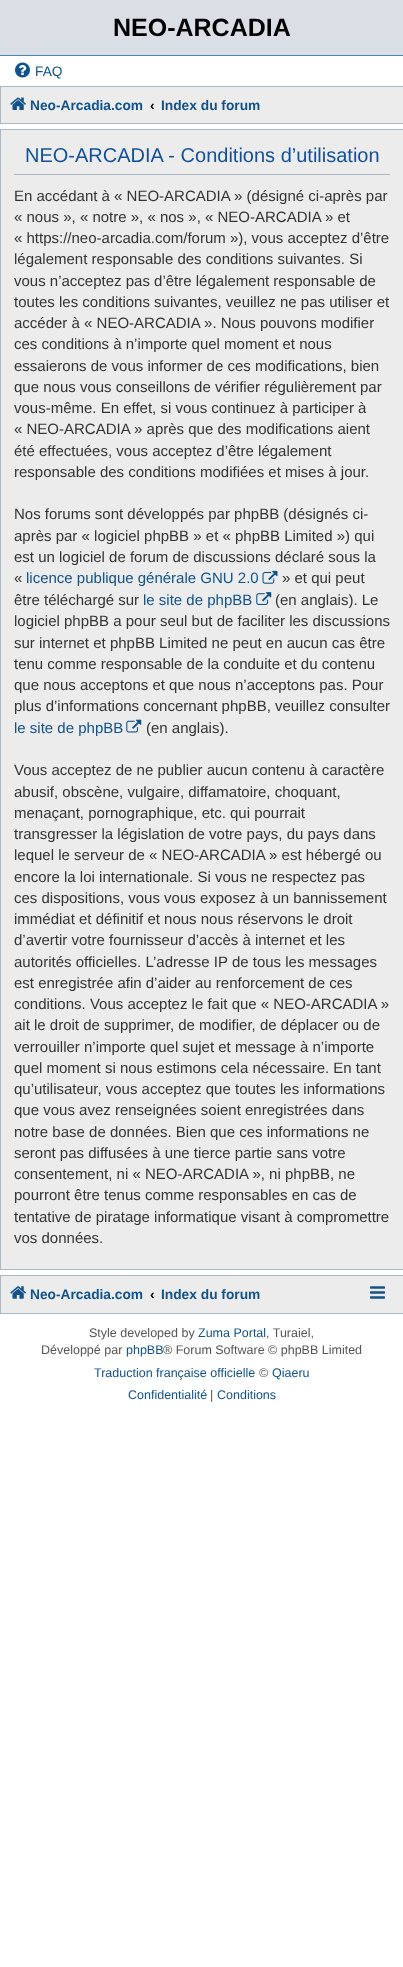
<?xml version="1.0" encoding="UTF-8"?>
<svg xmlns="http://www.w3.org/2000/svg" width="403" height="1967">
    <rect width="100%" height="100%" fill="#FFFFFF"/>
    <rect x="0" y="0" width="403" height="55" fill="#D9DFE4"/>
    <rect x="0" y="55" width="403" height="1" fill="#4787A7"/>
    <text x="113" y="36" font-family="Liberation Sans" font-size="25" font-weight="700" fill="#000000">NEO-ARCADIA</text>
    <image x="15" y="62" width="15" height="16" href="img_01.png"/>
    <text x="35" y="76" font-family="Liberation Sans" font-size="13.75" fill="#105289">FAQ</text>
    <rect x="0.5" y="86.5" width="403" height="37" fill="#ECECEC" stroke="#A9B8C2"/>
    <image x="10" y="97" width="16" height="13" href="img_02.png"/>
    <text x="30" y="110" font-family="Liberation Sans" font-size="13.75" font-weight="700" fill="#105289">Neo-Arcadia.com</text>
    <text x="150" y="110" font-family="Liberation Sans" font-size="13.75" font-weight="700" fill="#000000">‹</text>
    <text x="161" y="110" font-family="Liberation Sans" font-size="13.75" font-weight="700" fill="#105289">Index du forum</text>
    <rect x="0.5" y="129.5" width="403" height="1140" fill="#ECECEC" stroke="#A9B8C2"/>
    <rect x="14" y="174" width="376" height="1" fill="#A9B8C2"/>
    <text x="25" y="162" font-family="Liberation Sans" font-size="20" fill="#115098">NEO-ARCADIA - Conditions d’utilisation</text>
    <text font-family="Liberation Sans" font-size="15" fill="#333333">
        <tspan x="14" y="201">En accédant à « NEO-ARCADIA » (désigné ci-après par</tspan>
        <tspan x="14" y="222">« nous », « notre », « nos », « NEO-ARCADIA » et</tspan>
        <tspan x="14" y="243">« https://neo-arcadia.com/forum »), vous acceptez d’être</tspan>
        <tspan x="14" y="264">légalement responsable des conditions suivantes. Si</tspan>
        <tspan x="14" y="286">vous n’acceptez pas d’être légalement responsable de</tspan>
        <tspan x="14" y="307">toutes les conditions suivantes, veuillez ne pas utiliser et</tspan>
        <tspan x="14" y="328">accéder à « NEO-ARCADIA ». Nous pouvons modifier</tspan>
        <tspan x="14" y="349">ces conditions à n’importe quel moment et nous</tspan>
        <tspan x="14" y="371">essaierons de vous informer de ces modifications, bien</tspan>
        <tspan x="14" y="392">que nous vous conseillons de vérifier régulièrement par</tspan>
        <tspan x="14" y="413">vous-même. En effet, si vous continuez à participer à</tspan>
        <tspan x="14" y="434">« NEO-ARCADIA » après que des modifications aient</tspan>
        <tspan x="14" y="456">été effectuées, vous acceptez d’être légalement</tspan>
        <tspan x="14" y="477">responsable des conditions modifiées et mises à jour.</tspan>
    </text>
    <text font-family="Liberation Sans" font-size="15" fill="#333333">
        <tspan x="14" y="519">Nos forums sont développés par phpBB (désignés ci-</tspan>
        <tspan x="14" y="541">après par « logiciel phpBB » et « phpBB Limited ») qui</tspan>
        <tspan x="14" y="562">est un logiciel de forum de discussions déclaré sous la</tspan>
        <tspan x="14" y="583">«</tspan>
    </text>
    <text x="26" y="583" font-family="Liberation Sans" font-size="15" fill="#105289">licence publique générale GNU 2.0</text>
    <image x="262" y="570" width="16" height="14" href="img_03.png"/>
    <text x="282" y="583" font-family="Liberation Sans" font-size="15" fill="#333333">» et qui peut</text>
    <text x="14" y="605" font-family="Liberation Sans" font-size="15" fill="#333333">être téléchargé sur</text>
    <text x="143" y="605" font-family="Liberation Sans" font-size="15" fill="#105289">le site de phpBB</text>
    <image x="256" y="592" width="16" height="13" href="img_04.png"/>
    <text x="275" y="605" font-family="Liberation Sans" font-size="15" fill="#333333">(en anglais). Le</text>
    <text font-family="Liberation Sans" font-size="15" fill="#333333">
        <tspan x="14" y="626">logiciel phpBB a pour seul but de faciliter les discussions</tspan>
        <tspan x="14" y="648">sur internet et phpBB Limited ne peut en aucun cas être</tspan>
        <tspan x="14" y="669">tenu comme responsable de la conduite et du contenu</tspan>
        <tspan x="14" y="690">que nous acceptons et que nous n’acceptons pas. Pour</tspan>
        <tspan x="14" y="711">plus d’informations concernant phpBB, veuillez consulter</tspan>
    </text>
    <text x="14" y="733" font-family="Liberation Sans" font-size="15" fill="#105289">le site de phpBB</text>
    <image x="126" y="719" width="16" height="14" href="img_05.png"/>
    <text x="146" y="733" font-family="Liberation Sans" font-size="15" fill="#333333">(en anglais).</text>
    <text font-family="Liberation Sans" font-size="15" fill="#333333">
        <tspan x="14" y="775">Vous acceptez de ne publier aucun contenu à caractère</tspan>
        <tspan x="14" y="797">abusif, obscène, vulgaire, diffamatoire, choquant,</tspan>
        <tspan x="14" y="818">menaçant, pornographique, etc. qui pourrait</tspan>
        <tspan x="14" y="839">transgresser la législation de votre pays, du pays dans</tspan>
        <tspan x="14" y="860">lequel le serveur de « NEO-ARCADIA » est hébergé ou</tspan>
        <tspan x="14" y="882">encore la loi internationale. Si vous ne respectez pas</tspan>
        <tspan x="14" y="903">ces dispositions, vous vous exposez à un bannissement</tspan>
        <tspan x="14" y="924">immédiat et définitif et nous nous réservons le droit</tspan>
        <tspan x="14" y="945">d’avertir votre fournisseur d’accès à internet et les</tspan>
        <tspan x="14" y="967">autorités officielles. L’adresse IP de tous les messages</tspan>
        <tspan x="14" y="988">est enregistrée afin d’aider au renforcement de ces</tspan>
        <tspan x="14" y="1009">conditions. Vous acceptez le fait que « NEO-ARCADIA »</tspan>
        <tspan x="14" y="1030">ait le droit de supprimer, de modifier, de déplacer ou de</tspan>
        <tspan x="14" y="1052">verrouiller n’importe quel sujet et message à n’importe</tspan>
        <tspan x="14" y="1073">quel moment si nous estimons cela nécessaire. En tant</tspan>
        <tspan x="14" y="1094">qu’utilisateur, vous acceptez que toutes les informations</tspan>
        <tspan x="14" y="1115">que vous avez renseignées soient enregistrées dans</tspan>
        <tspan x="14" y="1137">notre base de données. Bien que ces informations ne</tspan>
        <tspan x="14" y="1158">seront pas diffusées à une tierce partie sans votre</tspan>
        <tspan x="14" y="1179">consentement, ni « NEO-ARCADIA », ni phpBB, ne</tspan>
        <tspan x="14" y="1200">pourront être tenus comme responsables en cas de</tspan>
        <tspan x="14" y="1222">tentative de piratage informatique visant à compromettre</tspan>
        <tspan x="14" y="1243">vos données.</tspan>
    </text>
    <rect x="0.5" y="1275.5" width="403" height="38" fill="#ECECEC" stroke="#A9B8C2"/>
    <image x="10" y="1286" width="16" height="13" href="img_06.png"/>
    <text x="30" y="1299" font-family="Liberation Sans" font-size="13.75" font-weight="700" fill="#105289">Neo-Arcadia.com</text>
    <text x="150" y="1299" font-family="Liberation Sans" font-size="13.75" font-weight="700" fill="#000000">‹</text>
    <text x="161" y="1299" font-family="Liberation Sans" font-size="13.75" font-weight="700" fill="#105289">Index du forum</text>
    <image x="370" y="1286" width="15" height="13" href="img_07.png"/>
    <text x="89" y="1337" font-family="Liberation Sans" font-size="12.5" fill="#555555">Style developed by</text>
    <text x="198" y="1337" font-family="Liberation Sans" font-size="12.5" fill="#105289">Zuma Portal</text>
    <text x="266" y="1337" font-family="Liberation Sans" font-size="12.5" fill="#555555">, Turaiel,</text>
    <text x="41" y="1354" font-family="Liberation Sans" font-size="12.5" fill="#555555">Développé par</text>
    <text x="126" y="1354" font-family="Liberation Sans" font-size="12.5" fill="#105289">phpBB</text>
    <text x="163" y="1354" font-family="Liberation Sans" font-size="12.5" fill="#555555">® Forum Software © phpBB Limited</text>
    <text x="94" y="1377" font-family="Liberation Sans" font-size="12.5" fill="#105289">Traduction française officielle</text>
    <text x="259" y="1377" font-family="Liberation Sans" font-size="12.5" fill="#555555">©</text>
    <text x="272" y="1377" font-family="Liberation Sans" font-size="12.5" fill="#105289">Qiaeru</text>
    <text x="128" y="1399" font-family="Liberation Sans" font-size="12.5" fill="#105289">Confidentialité</text>
    <text x="210" y="1399" font-family="Liberation Sans" font-size="12.5" fill="#555555">|</text>
    <text x="217" y="1399" font-family="Liberation Sans" font-size="12.5" fill="#105289">Conditions</text>
</svg>
